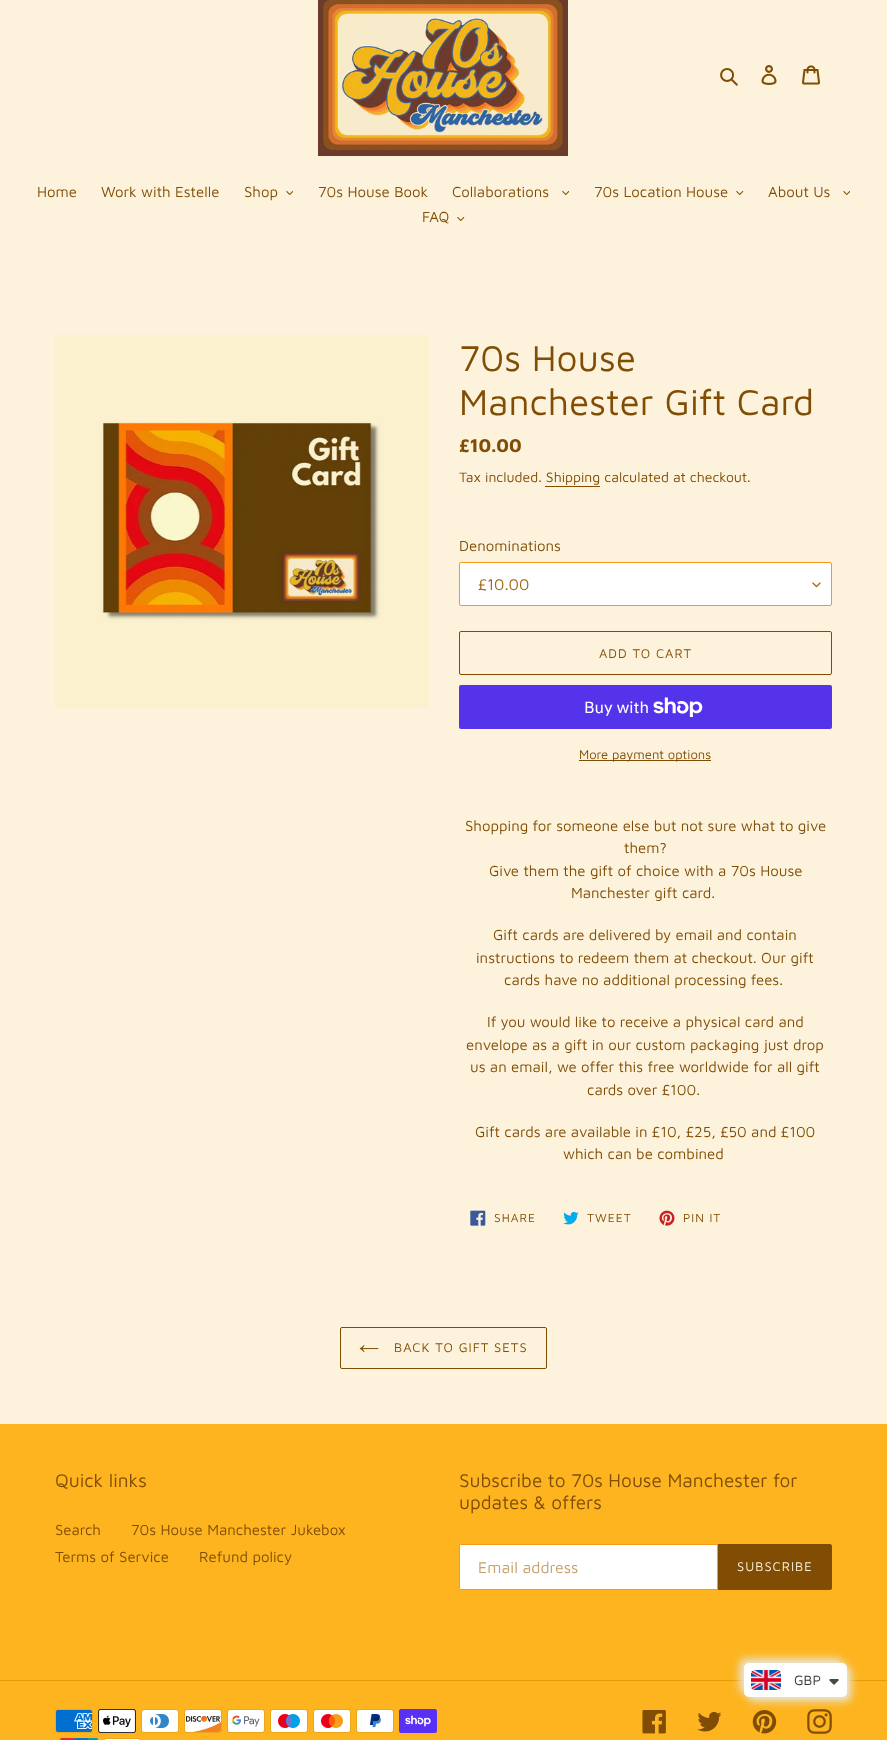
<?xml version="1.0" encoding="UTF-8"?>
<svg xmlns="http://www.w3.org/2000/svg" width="887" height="1740">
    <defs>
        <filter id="blur1" x="-50%" y="-200%" width="200%" height="500%"><feGaussianBlur stdDeviation="4.5"/></filter>
    </defs>
    <rect width="100%" height="100%" fill="#FDF3DC"/>
    <image x="318" y="0" width="250" height="156" href="img_01.png"/>
    <image x="720" y="68" width="18" height="18" href="img_02.png"/>
    <image x="761" y="65" width="16" height="20" href="img_03.png"/>
    <image x="802" y="65" width="18" height="20" href="img_04.png"/>
    <text x="37" y="197" font-family="Maven Pro" font-size="15" fill="#814D05">Home</text>
    <text x="101" y="197" font-family="Maven Pro" font-size="15" fill="#814D05">Work with Estelle</text>
    <text x="244" y="197" font-family="Maven Pro" font-size="15" fill="#814D05">Shop</text>
    <image x="286" y="191" width="7" height="4" href="img_05.png"/>
    <text x="318" y="197" font-family="Maven Pro" font-size="15" fill="#814D05">70s House Book</text>
    <text x="452" y="197" font-family="Maven Pro" font-size="15" fill="#814D05">Collaborations</text>
    <image x="562" y="191" width="7" height="4" href="img_05.png"/>
    <text x="594" y="197" font-family="Maven Pro" font-size="15" fill="#814D05">70s Location House</text>
    <image x="736" y="191" width="8" height="4" href="img_06.png"/>
    <text x="768" y="197" font-family="Maven Pro" font-size="15" fill="#814D05">About Us</text>
    <image x="843" y="191" width="7" height="4" href="img_05.png"/>
    <text x="422" y="222" font-family="Maven Pro" font-size="15" fill="#814D05">FAQ</text>
    <image x="457" y="217" width="8" height="4" href="img_06.png"/>
    <image x="55" y="335" width="374" height="373" href="img_07.png"/>
    <text font-family="Maven Pro" font-size="37" fill="#814D05">
        <tspan x="459" y="371">70s House</tspan>
        <tspan x="459" y="415">Manchester Gift Card</tspan>
    </text>
    <text x="459" y="452" font-family="Maven Pro" font-size="19" font-weight="700" fill="#814D05">£10.00</text>
    <text x="459" y="482" font-family="Maven Pro" font-size="14" fill="#814D05">Tax included. Shipping calculated at checkout.</text>
    <rect x="545" y="486" width="55" height="1" fill="#814D05"/>
    <text x="459" y="551" font-family="Maven Pro" font-size="15" fill="#814D05">Denominations</text>
    <rect x="459" y="562" width="373" height="44" rx="2" fill="#FFFFFF"/>
    <image x="812" y="582" width="9" height="6" href="img_08.png"/>
    <rect x="459.5" y="562.5" width="372" height="43" rx="1.5" fill="none" stroke="#F89A15"/>
    <text x="478" y="590" font-family="Maven Pro" font-size="16" fill="#9F6009">£10.00</text>
    <rect x="459.5" y="631.5" width="372" height="43" rx="1.5" fill="none" stroke="#814D05"/>
    <text x="599" y="658" font-family="Maven Pro" font-size="13" letter-spacing="1" fill="#814D05">ADD TO CART</text>
    <rect x="459" y="685" width="373" height="44" rx="2" fill="#5433EB"/>
    <text x="584" y="713" font-family="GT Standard" font-size="16" fill="#FFFFFF">Buy with</text>
    <image x="653" y="697" width="50" height="20" href="img_09.png"/>
    <rect x="579" y="760" width="132" height="1" fill="#814D05"/>
    <text x="579" y="759" font-family="Maven Pro" font-size="13" fill="#814D05">More payment options</text>
    <text x="465" y="831" font-family="Maven Pro" font-size="15" fill="#814D05">Shopping for someone else but not sure what to give</text>
    <text x="624" y="853" font-family="Maven Pro" font-size="15" fill="#814D05">them?</text>
    <text x="489" y="876" font-family="Maven Pro" font-size="15" fill="#814D05">Give them the gift of choice with a 70s House</text>
    <text x="571" y="898" font-family="Maven Pro" font-size="15" fill="#814D05">Manchester gift card.</text>
    <text x="493" y="940" font-family="Maven Pro" font-size="15" fill="#814D05">Gift cards are delivered by email and contain</text>
    <text x="476" y="963" font-family="Maven Pro" font-size="15" fill="#814D05">instructions to redeem them at checkout. Our gift</text>
    <text x="504" y="985" font-family="Maven Pro" font-size="15" fill="#814D05">cards have no additional processing fees.</text>
    <text x="487" y="1027" font-family="Maven Pro" font-size="15" fill="#814D05">If you would like to receive a physical card and</text>
    <text x="466" y="1050" font-family="Maven Pro" font-size="15" fill="#814D05">envelope as a gift in our custom packaging just drop</text>
    <text x="470" y="1072" font-family="Maven Pro" font-size="15" fill="#814D05">us an email, we offer this free worldwide for all gift</text>
    <text x="587" y="1095" font-family="Maven Pro" font-size="15" fill="#814D05">cards over £100.</text>
    <text x="475" y="1137" font-family="Maven Pro" font-size="15" fill="#814D05">Gift cards are available in £10, £25, £50 and £100</text>
    <text x="563" y="1159" font-family="Maven Pro" font-size="15" fill="#814D05">which can be combined</text>
    <image x="470" y="1210" width="16" height="16" href="img_10.png"/>
    <text x="494" y="1222" font-family="Maven Pro" font-size="12" letter-spacing="1" fill="#814D05">SHARE</text>
    <image x="563" y="1211" width="16" height="14" href="img_11.png"/>
    <text x="587" y="1222" font-family="Maven Pro" font-size="12" letter-spacing="1" fill="#814D05">TWEET</text>
    <image x="659" y="1210" width="16" height="16" href="img_12.png"/>
    <text x="683" y="1222" font-family="Maven Pro" font-size="12" letter-spacing="1" fill="#814D05">PIN IT</text>
    <rect x="340.5" y="1327.5" width="206" height="41" rx="1.5" fill="none" stroke="#814D05"/>
    <image x="359" y="1345" width="20" height="8" href="img_13.png"/>
    <text x="394" y="1352" font-family="Maven Pro" font-size="13" letter-spacing="1" fill="#814D05">BACK TO GIFT SETS</text>
    <rect x="0" y="1424" width="887" height="316" fill="#FDB41E"/>
    <text x="55" y="1487" font-family="Maven Pro" font-size="19" fill="#814D05">Quick links</text>
    <text x="55" y="1535" font-family="Maven Pro" font-size="15" fill="#814D05">Search</text>
    <text x="131" y="1535" font-family="Maven Pro" font-size="15" fill="#814D05">70s House Manchester Jukebox</text>
    <text x="55" y="1562" font-family="Maven Pro" font-size="15" fill="#814D05">Terms of Service</text>
    <text x="199" y="1562" font-family="Maven Pro" font-size="15" fill="#814D05">Refund policy</text>
    <text font-family="Maven Pro" font-size="19" fill="#814D05">
        <tspan x="459" y="1487">Subscribe to 70s House Manchester for</tspan>
        <tspan x="459" y="1509">updates &amp; offers</tspan>
    </text>
    <path d="M 461 1544.5 H 717.5 V 1589.5 H 461 C 460 1589.5 459.5 1589 459.5 1588 V 1546 C 459.5 1545 460 1544.5 461 1544.5 Z" fill="#FFFFFF" stroke="#F89A15"/>
    <text x="478" y="1573" font-family="Maven Pro" font-size="16" fill="#C5A06B">Email address</text>
    <path d="M 718 1544 H 830 C 831 1544 832 1545 832 1546 V 1588 C 832 1589 831 1590 830 1590 H 718 Z" fill="#814D05"/>
    <text x="737" y="1571" font-family="Maven Pro" font-size="13" letter-spacing="1" fill="#FDF3DC">SUBSCRIBE</text>
    <rect x="0" y="1680" width="887" height="1" fill="#E69B02"/>
    <image x="55" y="1709" width="38" height="24" href="img_14.png"/>
    <image x="98" y="1709" width="38" height="24" href="img_15.png"/>
    <image x="141" y="1709" width="38" height="24" href="img_16.png"/>
    <image x="184" y="1709" width="38" height="24" href="img_17.png"/>
    <image x="227" y="1709" width="38" height="24" href="img_18.png"/>
    <image x="270" y="1709" width="38" height="24" href="img_19.png"/>
    <image x="313" y="1709" width="38" height="24" href="img_20.png"/>
    <image x="356" y="1709" width="38" height="24" href="img_21.png"/>
    <image x="399" y="1709" width="38" height="24" href="img_22.png"/>
    <image x="60" y="1738" width="38" height="2" href="img_23.png"/>
    <image x="103" y="1738" width="38" height="2" href="img_24.png"/>
    <image x="642" y="1710" width="24" height="24" href="img_25.png"/>
    <image x="697" y="1712" width="25" height="20" href="img_26.png"/>
    <image x="752" y="1710" width="25" height="24" href="img_27.png"/>
    <image x="807" y="1709" width="25" height="25" href="img_28.png"/>
    <rect x="740" y="1659" width="103" height="34" rx="5" fill="#E8E8E2" filter="url(#blur1)"/>
    <rect x="748" y="1667" width="103" height="34" rx="5" fill="#E8E8E2" filter="url(#blur1)"/>
    <rect x="744" y="1663" width="103" height="34" rx="5" fill="#FFFFFF"/>
    <image x="751" y="1670" width="30" height="20" href="img_29.png"/>
    <text x="794" y="1685" font-family="Maven Pro" font-size="14" fill="#333333">GBP</text>
    <path d="M 831 1679 C 830 1679 829.5 1679.5 829 1680 L 834 1685 L 839 1680 L 838 1679 Z" fill="#474942"/>
</svg>
